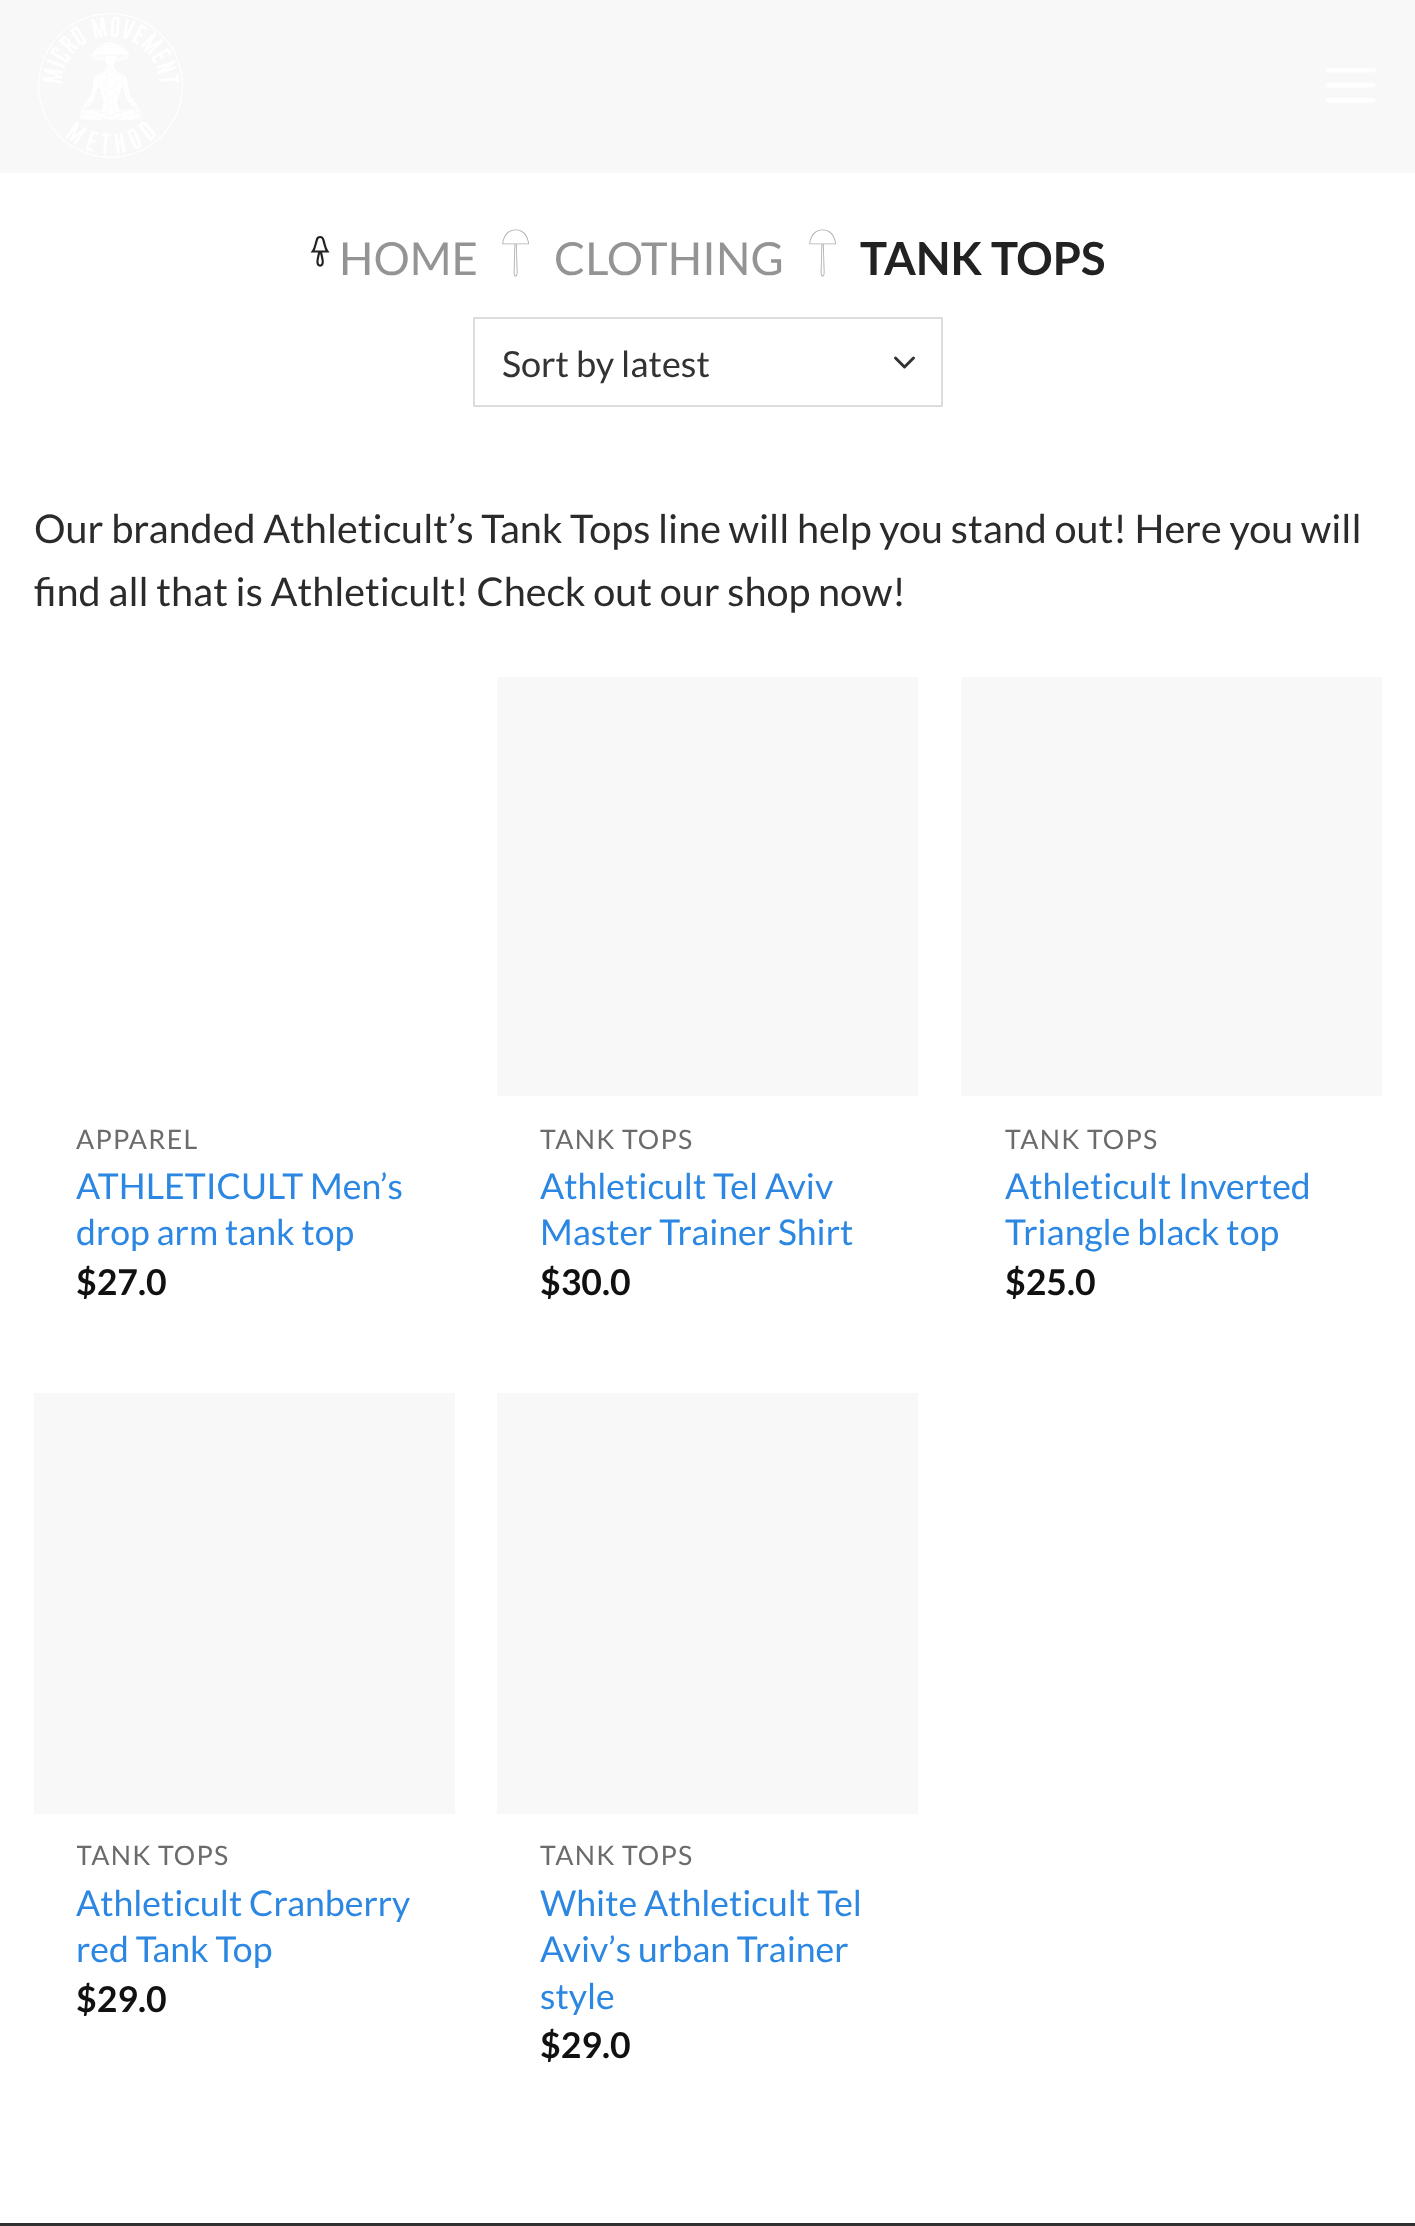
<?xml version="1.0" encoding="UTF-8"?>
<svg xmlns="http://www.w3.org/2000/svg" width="1415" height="2226">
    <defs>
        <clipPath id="clip1"><rect x="77" y="1841" width="335" height="31"/></clipPath>
    </defs>
    <rect width="100%" height="100%" fill="#FFFFFF"/>
    <rect x="0" y="0" width="1415" height="173" fill="#F8F8F8"/>
    <image x="38" y="13" width="145" height="145" href="img_01.png"/>
    <image x="1326" y="68" width="50" height="35" href="img_02.png"/>
    <text x="309" y="275" font-family="Noto Sans Egyptian Hieroglyphs" font-size="45.5" font-weight="700" fill="#222222">𓍊</text>
    <text x="339" y="275" font-family="Lato" font-size="45.5" fill="#949494">HOME</text>
    <text x="500" y="275" font-family="Noto Sans Egyptian Hieroglyphs" font-size="45.5" fill="#B2B2B2">𓋼</text>
    <text x="554" y="275" font-family="Lato" font-size="45.5" fill="#949494">CLOTHING</text>
    <text x="807" y="275" font-family="Noto Sans Egyptian Hieroglyphs" font-size="45.5" fill="#B2B2B2">𓋼</text>
    <text x="860" y="275" font-family="Lato" font-size="45.5" font-weight="700" fill="#222222">TANK TOPS</text>
    <path d="M 895.5 358 L 904.5 367 L 913.5 358" fill="none" stroke="#333333" stroke-width="3" stroke-linecap="round" stroke-linejoin="round"/>
    <rect x="474" y="318" width="468" height="88" fill="none" stroke="#DDDDDD" stroke-width="2"/>
    <text x="502" y="377" font-family="Lato" font-size="36" fill="#333333">Sort by latest</text>
    <text font-family="Lato" font-size="39.6" fill="#2B2B2B">
        <tspan x="34" y="543">Our branded Athleticult’s Tank Tops line will help you stand out! Here you will</tspan>
        <tspan x="34" y="606">find all that is Athleticult! Check out our shop now!</tspan>
    </text>
    <text x="76" y="1149" font-family="Lato" font-size="26.75" letter-spacing="1.25" fill="#6B6B6B">APPAREL</text>
    <text font-family="Lato" font-size="35.6" fill="#2C87E2">
        <tspan x="76" y="1199">ATHLETICULT Men’s</tspan>
        <tspan x="76" y="1245">drop arm tank top</tspan>
    </text>
    <text x="76" y="1295" font-family="Lato" font-size="35.6" font-weight="700" fill="#111111">$27.0</text>
    <rect x="497" y="677" width="421" height="419" fill="#F8F8F8"/>
    <text x="540" y="1149" font-family="Lato" font-size="26.75" letter-spacing="1.25" fill="#6B6B6B">TANK TOPS</text>
    <text font-family="Lato" font-size="35.6" fill="#2C87E2">
        <tspan x="540" y="1199">Athleticult Tel Aviv</tspan>
        <tspan x="540" y="1245">Master Trainer Shirt</tspan>
    </text>
    <text x="540" y="1295" font-family="Lato" font-size="35.6" font-weight="700" fill="#111111">$30.0</text>
    <rect x="961" y="677" width="421" height="419" fill="#F8F8F8"/>
    <text x="1005" y="1149" font-family="Lato" font-size="26.75" letter-spacing="1.25" fill="#6B6B6B">TANK TOPS</text>
    <text font-family="Lato" font-size="35.6" fill="#2C87E2">
        <tspan x="1005" y="1199">Athleticult Inverted</tspan>
        <tspan x="1005" y="1245">Triangle black top</tspan>
    </text>
    <text x="1005" y="1295" font-family="Lato" font-size="35.6" font-weight="700" fill="#111111">$25.0</text>
    <rect x="34" y="1393" width="421" height="421" fill="#F8F8F8"/>
    <g clip-path="url(#clip1)">
        <text x="76" y="1865" font-family="Lato" font-size="26.75" letter-spacing="1.25" fill="#6B6B6B">TANK TOPS</text>
    </g>
    <text font-family="Lato" font-size="35.6" fill="#2C87E2">
        <tspan x="76" y="1916">Athleticult Cranberry</tspan>
        <tspan x="76" y="1962">red Tank Top</tspan>
    </text>
    <text x="76" y="2012" font-family="Lato" font-size="35.6" font-weight="700" fill="#111111">$29.0</text>
    <rect x="497" y="1393" width="421" height="421" fill="#F8F8F8"/>
    <text x="540" y="1865" font-family="Lato" font-size="26.75" letter-spacing="1.25" fill="#6B6B6B">TANK TOPS</text>
    <text font-family="Lato" font-size="35.6" fill="#2C87E2">
        <tspan x="540" y="1916">White Athleticult Tel</tspan>
        <tspan x="540" y="1962">Aviv’s urban Trainer</tspan>
        <tspan x="540" y="2009">style</tspan>
    </text>
    <text x="540" y="2058" font-family="Lato" font-size="35.6" font-weight="700" fill="#111111">$29.0</text>
    <rect x="0" y="2225" width="1415" height="1" fill="#333333"/>
    <rect x="0" y="2223" width="1415" height="2" fill="#303030"/>
</svg>
